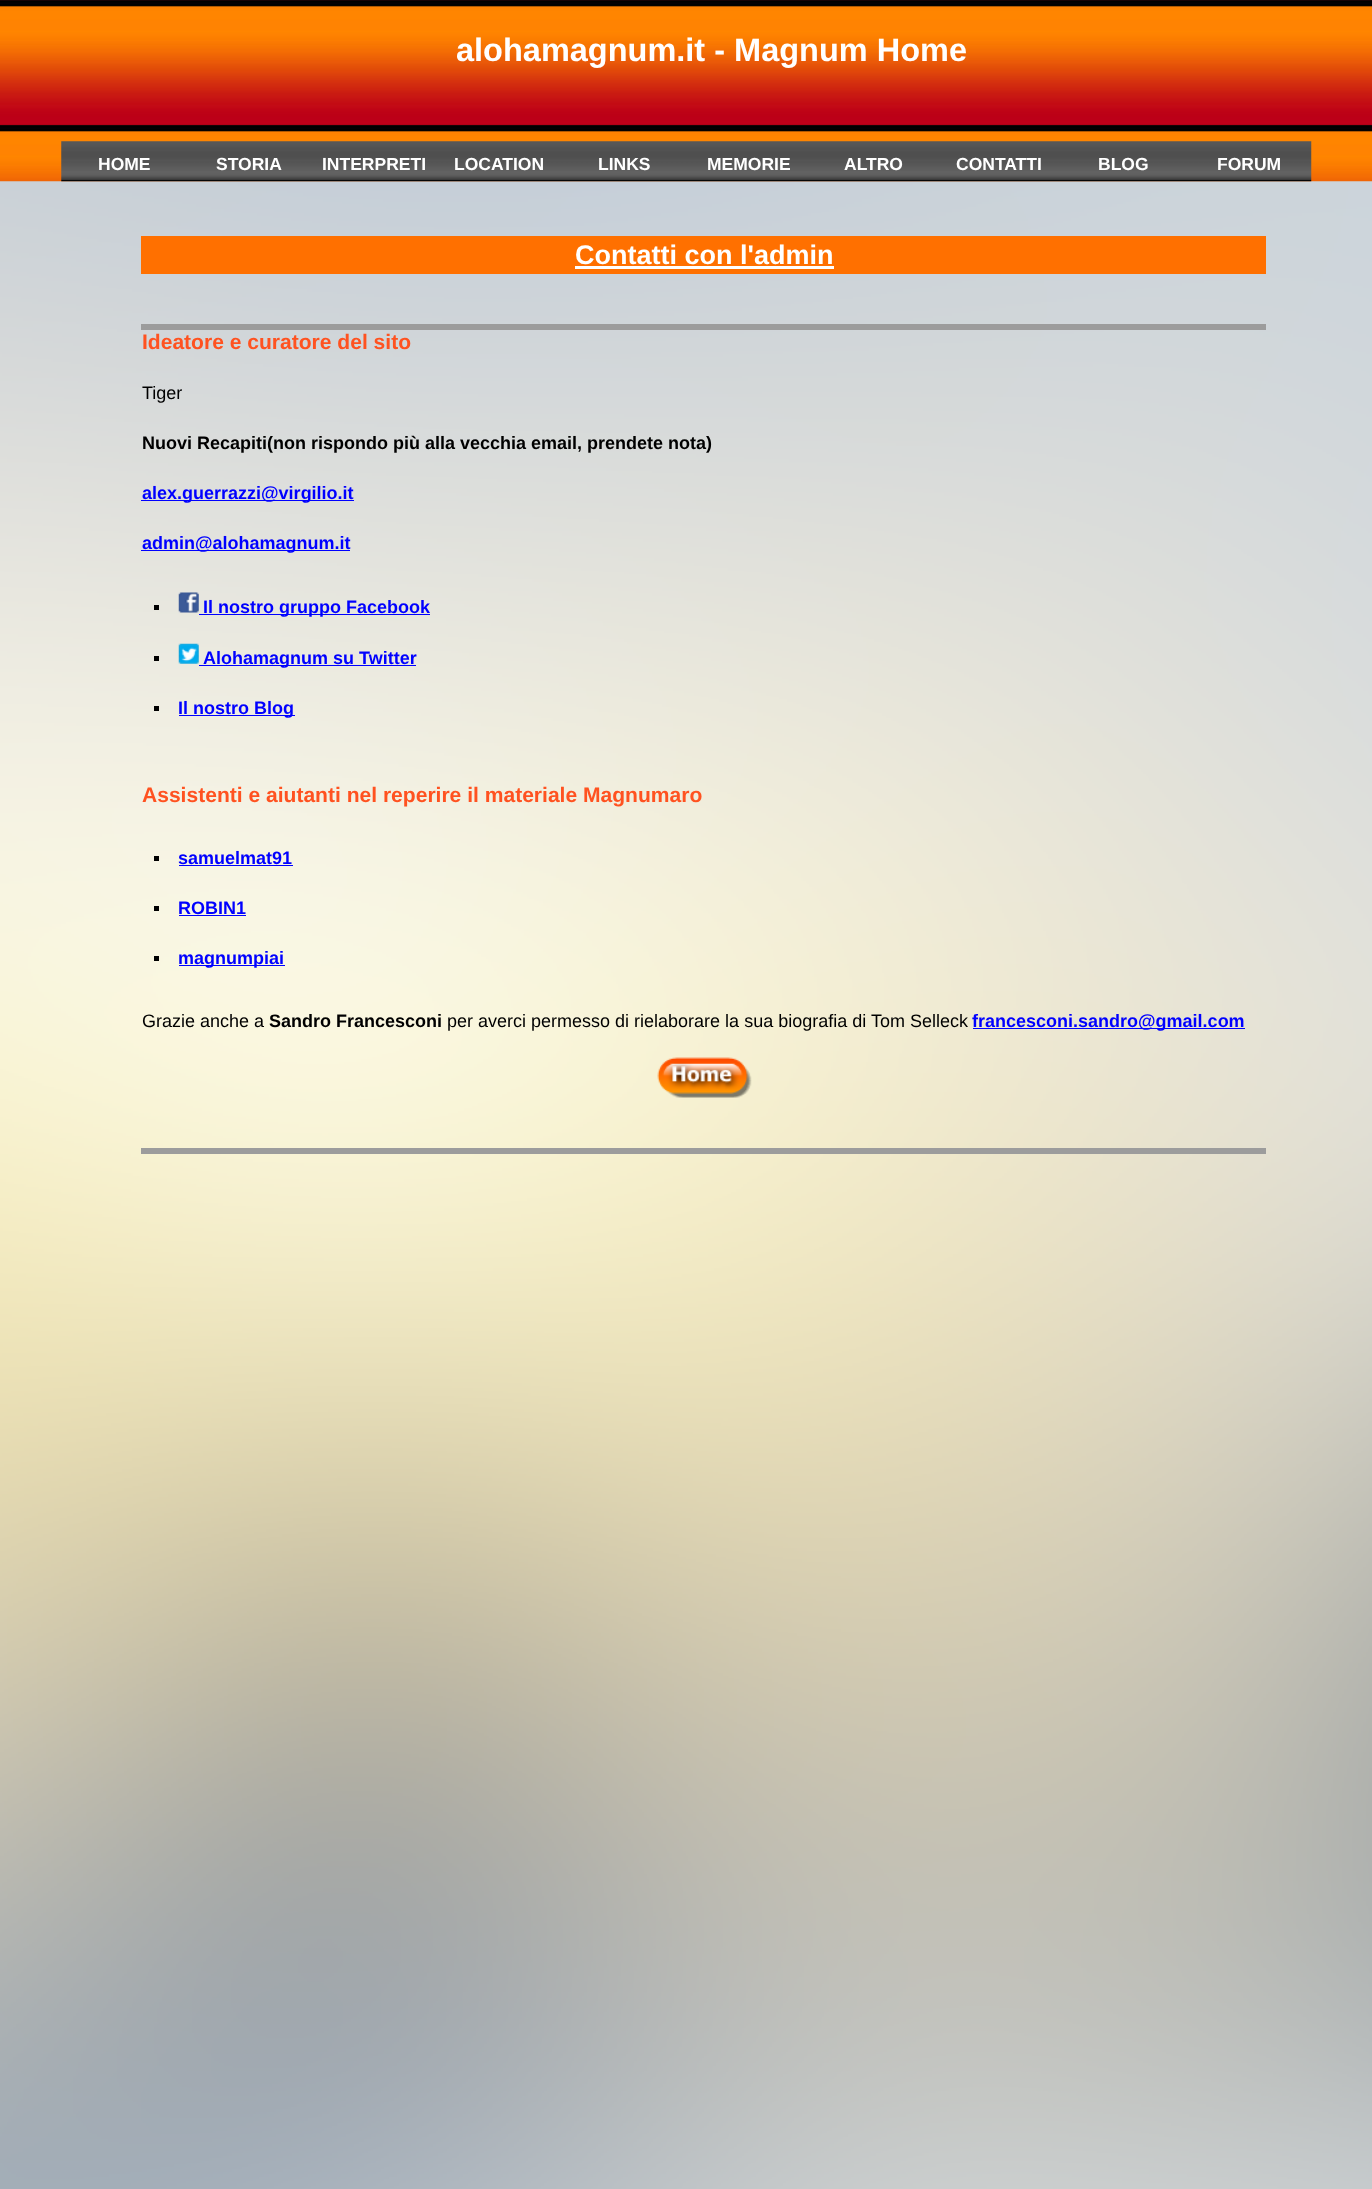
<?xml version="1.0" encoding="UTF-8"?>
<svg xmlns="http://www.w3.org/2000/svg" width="1372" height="2189">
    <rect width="100%" height="100%" fill="#FFFFFF"/>
    <image x="0" y="181" width="1372" height="2008" href="img_01.png"/>
    <image x="0" y="0" width="1372" height="182" href="img_02.png"/>
    <text x="456" y="61" font-family="Liberation Sans" font-size="32.5" font-weight="700" fill="#FFFFFF">alohamagnum.it - Magnum Home</text>
    <image x="61" y="141" width="1251" height="41" href="img_03.png"/>
    <text x="98" y="170" font-family="Liberation Sans" font-size="17.5" font-weight="700" fill="#FFFFFF">HOME</text>
    <text x="216" y="170" font-family="Liberation Sans" font-size="17.5" font-weight="700" fill="#FFFFFF">STORIA</text>
    <text x="322" y="170" font-family="Liberation Sans" font-size="17.5" font-weight="700" fill="#FFFFFF">INTERPRETI</text>
    <text x="454" y="170" font-family="Liberation Sans" font-size="17.5" font-weight="700" fill="#FFFFFF">LOCATION</text>
    <text x="598" y="170" font-family="Liberation Sans" font-size="17.5" font-weight="700" fill="#FFFFFF">LINKS</text>
    <text x="707" y="170" font-family="Liberation Sans" font-size="17.5" font-weight="700" fill="#FFFFFF">MEMORIE</text>
    <text x="844" y="170" font-family="Liberation Sans" font-size="17.5" font-weight="700" fill="#FFFFFF">ALTRO</text>
    <text x="956" y="170" font-family="Liberation Sans" font-size="17.5" font-weight="700" fill="#FFFFFF">CONTATTI</text>
    <text x="1098" y="170" font-family="Liberation Sans" font-size="17.5" font-weight="700" fill="#FFFFFF">BLOG</text>
    <text x="1217" y="170" font-family="Liberation Sans" font-size="17.5" font-weight="700" fill="#FFFFFF">FORUM</text>
    <rect x="141" y="236" width="1125" height="38" fill="#FF7000"/>
    <text x="575" y="264" font-family="Liberation Sans" font-size="27" font-weight="700" fill="#FFFFFF">Contatti con l'admin</text>
    <rect x="575" y="266" width="259" height="3" fill="#FFFFFF"/>
    <rect x="141" y="324" width="1125" height="6" fill="#9C9C9C"/>
    <text x="142" y="349" font-family="Liberation Sans" font-size="21.05" font-weight="700" fill="#FF5220">Ideatore e curatore del sito</text>
    <text x="142" y="399" font-family="Liberation Sans" font-size="18" fill="#000000">Tiger</text>
    <text x="142" y="449" font-family="Liberation Sans" font-size="18" font-weight="700" fill="#000000">Nuovi Recapiti(non rispondo più alla vecchia email, prendete nota)</text>
    <rect x="141" y="500" width="213" height="1" fill="#0000FF"/>
    <text x="142" y="499" font-family="Liberation Sans" font-size="18" font-weight="700" fill="#0000FF">alex.guerrazzi@virgilio.it</text>
    <rect x="141" y="550" width="209" height="1" fill="#0000FF"/>
    <text x="142" y="549" font-family="Liberation Sans" font-size="18" font-weight="700" fill="#0000FF">admin@alohamagnum.it</text>
    <rect x="154" y="605" width="5" height="5" fill="#000000"/>
    <image x="178" y="592" width="21" height="21" href="img_04.png"/>
    <rect x="199" y="614" width="231" height="1" fill="#0000FF"/>
    <text x="203" y="613" font-family="Liberation Sans" font-size="18" font-weight="700" fill="#0000FF">Il nostro gruppo Facebook</text>
    <rect x="154" y="656" width="5" height="5" fill="#000000"/>
    <image x="178" y="643" width="21" height="21" href="img_05.png"/>
    <rect x="199" y="665" width="217" height="1" fill="#0000FF"/>
    <text x="203" y="664" font-family="Liberation Sans" font-size="18" font-weight="700" fill="#0000FF">Alohamagnum su Twitter</text>
    <rect x="154" y="706" width="5" height="5" fill="#000000"/>
    <rect x="179" y="715" width="116" height="1" fill="#0000FF"/>
    <text x="178" y="714" font-family="Liberation Sans" font-size="18" font-weight="700" fill="#0000FF">Il nostro Blog</text>
    <text x="142" y="802" font-family="Liberation Sans" font-size="21.05" font-weight="700" fill="#FF5220">Assistenti e aiutanti nel reperire il materiale Magnumaro</text>
    <rect x="154" y="856" width="5" height="5" fill="#000000"/>
    <text x="178" y="864" font-family="Liberation Sans" font-size="18" font-weight="700" fill="#0000FF">samuelmat91</text>
    <rect x="179" y="865" width="114" height="1" fill="#0000FF"/>
    <rect x="154" y="906" width="5" height="5" fill="#000000"/>
    <text x="178" y="914" font-family="Liberation Sans" font-size="18" font-weight="700" fill="#0000FF">ROBIN1</text>
    <rect x="179" y="915" width="67" height="1" fill="#0000FF"/>
    <rect x="154" y="956" width="5" height="5" fill="#000000"/>
    <rect x="179" y="965" width="106" height="1" fill="#0000FF"/>
    <text x="178" y="964" font-family="Liberation Sans" font-size="18" font-weight="700" fill="#0000FF">magnumpiai</text>
    <text x="142" y="1027" font-family="Liberation Sans" font-size="18" fill="#000000">Grazie anche a</text>
    <text x="269" y="1027" font-family="Liberation Sans" font-size="18" font-weight="700" fill="#000000">Sandro Francesconi</text>
    <text x="447" y="1027" font-family="Liberation Sans" font-size="18" fill="#000000">per averci permesso di rielaborare la sua biografia di Tom Selleck</text>
    <rect x="973" y="1028" width="272" height="1" fill="#0000FF"/>
    <text x="972" y="1027" font-family="Liberation Sans" font-size="18" font-weight="700" fill="#0000FF">francesconi.sandro@gmail.com</text>
    <image x="657" y="1057" width="95" height="41" href="img_06.png"/>
    <rect x="141" y="1148" width="1125" height="6" fill="#9C9C9C"/>
</svg>
